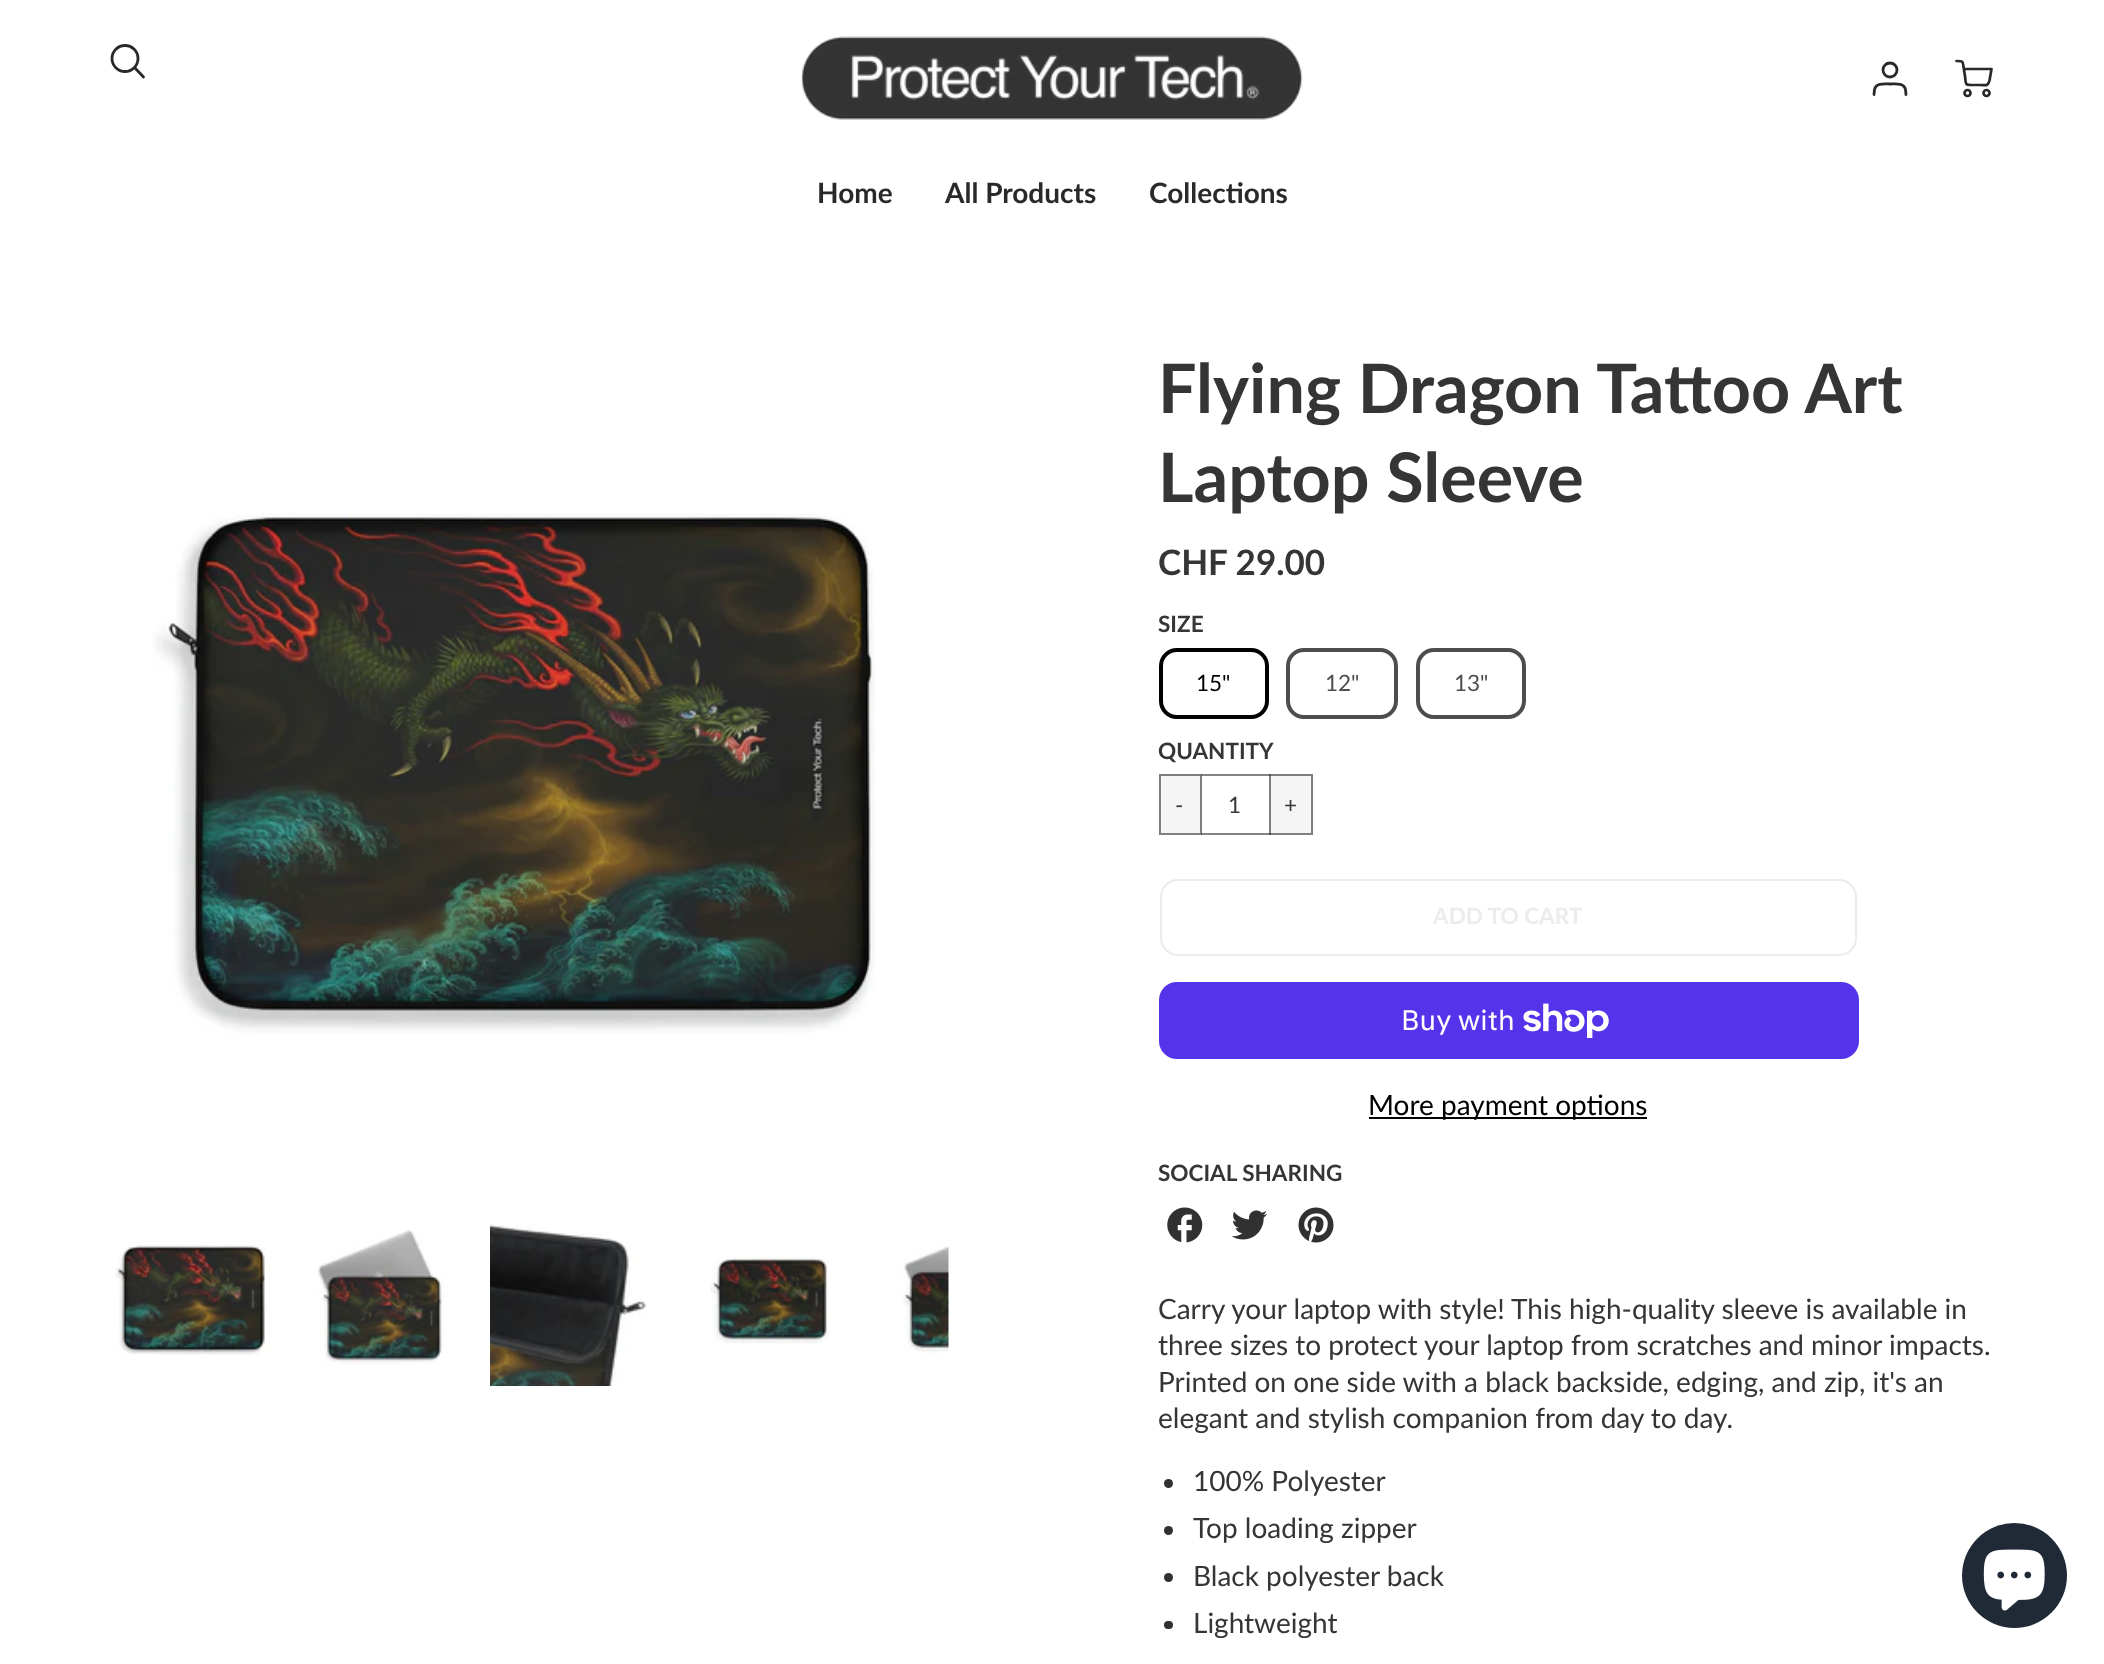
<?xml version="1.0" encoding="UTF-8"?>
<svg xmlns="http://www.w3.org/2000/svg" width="2104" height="1664">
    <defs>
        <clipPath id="clip1"><rect x="1159" y="1292" width="841" height="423"/></clipPath>
    </defs>
    <rect width="100%" height="100%" fill="#FFFFFF"/>
    <rect x="1269" y="774" width="44" height="61" fill="#F5F5F5"/>
    <rect x="1159" y="774" width="43" height="61" fill="#F5F5F5"/>
    <circle cx="125" cy="58.5" r="13" fill="none" stroke="#292929" stroke-width="2.8"/>
    <path d="M 143.5 77 L 135 68" fill="none" stroke="#292929" stroke-width="2.8" stroke-linecap="round" stroke-linejoin="round"/>
    <image x="801" y="36" width="502" height="84" href="img_01.png"/>
    <circle cx="1890" cy="70" r="7" fill="none" stroke="#292929" stroke-width="2.8"/>
    <path d="M 1906 94.5 L 1905.5 89.5 C 1904 82.5 1895 84 1890 84 C 1885 84 1876 82.5 1874.5 89.5 L 1874 94.5" fill="none" stroke="#292929" stroke-width="2.8" stroke-linecap="round" stroke-linejoin="round"/>
    <path d="M 1964 69 H 1991.5 L 1989.5 80.5 C 1988 86.5 1986 85 1980 85 H 1971.5 C 1964.5 85 1966 83.5 1965 76 L 1963.5 67 C 1963 61 1962.5 61 1956.5 61" fill="none" stroke="#292929" stroke-width="2.7" stroke-linecap="round" stroke-linejoin="round"/>
    <circle cx="1967.5" cy="93" r="3" fill="none" stroke="#292929" stroke-width="2.7"/>
    <circle cx="1986.5" cy="93" r="3" fill="none" stroke="#292929" stroke-width="2.7"/>
    <text x="817" y="203" font-family="Lato" font-size="28" font-weight="700" fill="#292929">Home</text>
    <text x="945" y="203" font-family="Lato" font-size="28" font-weight="700" fill="#292929">All Products</text>
    <text x="1149" y="203" font-family="Lato" font-size="28" font-weight="700" fill="#292929">Collections</text>
    <image x="153" y="513" width="723" height="521" href="img_02.png"/>
    <image x="115" y="1239" width="158" height="116" href="img_03.png"/>
    <image x="318" y="1230" width="127" height="135" href="img_04.png"/>
    <image x="490" y="1224" width="157" height="162" href="img_05.png"/>
    <image x="710" y="1257" width="119" height="87" href="img_06.png"/>
    <image x="902" y="1246" width="47" height="107" href="img_07.png"/>
    <text font-family="Lato" font-size="68.3" font-weight="700" fill="#363535">
        <tspan x="1158" y="413">Flying Dragon Tattoo Art</tspan>
        <tspan x="1158" y="502">Laptop Sleeve</tspan>
    </text>
    <text x="1158" y="575" font-family="Lato" font-size="35" font-weight="700" fill="#363535">CHF 29.00</text>
    <text x="1158" y="632" font-family="Lato" font-size="22.5" font-weight="700" fill="#363535">SIZE</text>
    <rect x="1161" y="650" width="106" height="67" rx="16" fill="none" stroke="#000000" stroke-width="4"/>
    <text x="1196" y="691" font-family="Lato" font-size="22.5" fill="#000000">15"</text>
    <rect x="1288" y="650" width="108" height="67" rx="16" fill="none" stroke="#4D4D4D" stroke-width="4"/>
    <text x="1325" y="691" font-family="Lato" font-size="22.5" fill="#4D4D4D">12"</text>
    <rect x="1418" y="650" width="106" height="67" rx="16" fill="none" stroke="#4D4D4D" stroke-width="4"/>
    <text x="1454" y="691" font-family="Lato" font-size="22.5" fill="#4D4D4D">13"</text>
    <text x="1158" y="759" font-family="Lato" font-size="22.5" font-weight="700" fill="#363535">QUANTITY</text>
    <rect x="1201" y="774" width="70" height="2" fill="#838383"/>
    <rect x="1201" y="774" width="1" height="2" fill="#7F7F7F"/>
    <rect x="1201" y="833" width="70" height="2" fill="#838383"/>
    <rect x="1201" y="833" width="1" height="2" fill="#7F7F7F"/>
    <rect x="1160" y="775" width="41" height="59" fill="none" stroke="#313131" stroke-opacity="0.6" stroke-width="2"/>
    <text x="1175" y="813" font-family="Lato" font-size="22.5" fill="#363535">-</text>
    <rect x="1269" y="774" width="2" height="2" fill="#7F7F7F"/>
    <rect x="1269" y="833" width="2" height="2" fill="#7F7F7F"/>
    <text x="1228" y="813" font-family="Lato" font-size="22.5" fill="#363535">1</text>
    <rect x="1270" y="775" width="42" height="59" fill="none" stroke="#313131" stroke-opacity="0.6" stroke-width="2"/>
    <text x="1284" y="813" font-family="Lato" font-size="22.5" fill="#363535">+</text>
    <rect x="1161" y="880" width="695" height="75" rx="17" fill="none" stroke="#ECECEC" stroke-width="2"/>
    <text x="1433" y="924" font-family="Lato" font-size="22.5" font-weight="700" fill="#ECECEC">ADD TO CART</text>
    <rect x="1159" y="982" width="700" height="77" rx="18" fill="#5433EB"/>
    <text x="1401" y="1030" font-family="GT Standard" font-size="28" fill="#FFFFFF">Buy with</text>
    <image x="1523" y="1003" width="86" height="35" href="img_08.png"/>
    <rect x="1369" y="1117" width="278" height="2" fill="#000000"/>
    <text x="1368" y="1115" font-family="Lato" font-size="28" fill="#000000">More payment options</text>
    <text x="1158" y="1181" font-family="Lato" font-size="22.5" font-weight="700" fill="#363535">SOCIAL SHARING</text>
    <image x="1167" y="1207" width="36" height="36" href="img_09.png"/>
    <image x="1231" y="1210" width="37" height="30" href="img_10.png"/>
    <image x="1298" y="1207" width="36" height="36" href="img_11.png"/>
    <text font-family="Lato" font-size="28" fill="#363535">
        <tspan x="1158" y="1319">Carry your laptop with style! This high-quality sleeve is available in</tspan>
        <tspan x="1158" y="1355">three sizes to protect your laptop from scratches and minor impacts.</tspan>
        <tspan x="1158" y="1392">Printed on one side with a black backside, edging, and zip, it's an</tspan>
    </text>
    <g clip-path="url(#clip1)">
        <text x="1158" y="1428" font-family="Lato" font-size="28" fill="#363535">elegant and stylish companion from day to day.</text>
    </g>
    <circle cx="1168.5" cy="1483.5" r="4.5" fill="#313131"/>
    <text x="1193" y="1491" font-family="Lato" font-size="28" fill="#363535">100% Polyester</text>
    <circle cx="1168.5" cy="1530.5" r="4.5" fill="#313131"/>
    <text x="1193" y="1538" font-family="Lato" font-size="28" fill="#363535">Top loading zipper</text>
    <circle cx="1168.5" cy="1577.5" r="4.5" fill="#313131"/>
    <text x="1193" y="1586" font-family="Lato" font-size="28" fill="#363535">Black polyester back</text>
    <rect x="1164" y="1621" width="9" height="8" rx="4" fill="#313131"/>
    <text x="1193" y="1633" font-family="Lato" font-size="28" fill="#363535">Lightweight</text>
    <circle cx="2014.5" cy="1575.5" r="52.5" fill="#202A36"/>
    <image x="1983" y="1549" width="62" height="62" href="img_12.png"/>
</svg>
